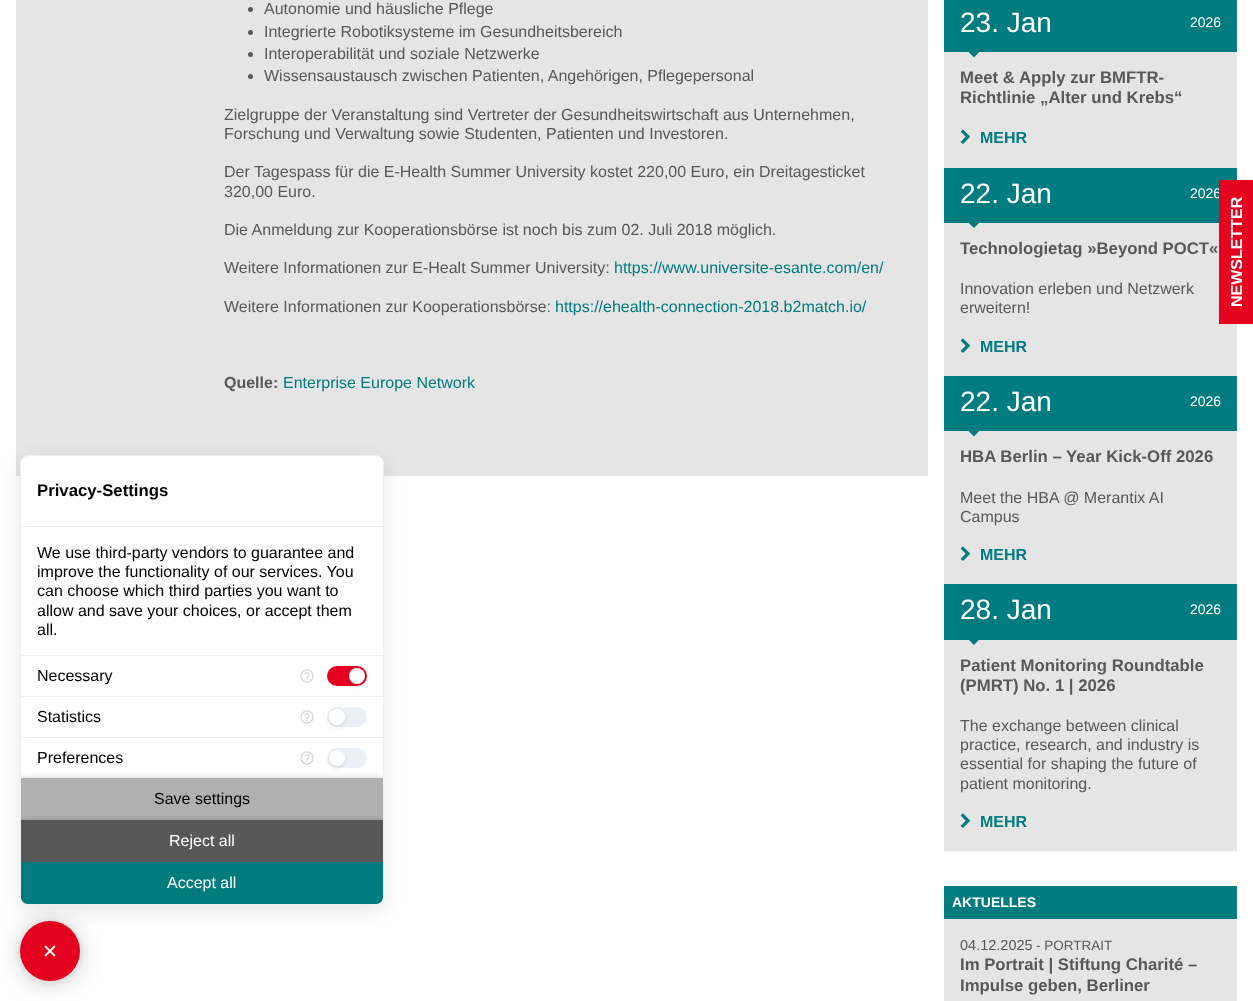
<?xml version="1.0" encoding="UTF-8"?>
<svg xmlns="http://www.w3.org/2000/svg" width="1253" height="1001">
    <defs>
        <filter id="blur1" x="-50%" y="-200%" width="200%" height="500%"><feGaussianBlur stdDeviation="12"/></filter>
        <filter id="blur2" x="-50%" y="-200%" width="200%" height="500%"><feGaussianBlur stdDeviation="3"/></filter>
        <filter id="blur3" x="-50%" y="-200%" width="200%" height="500%"><feGaussianBlur stdDeviation="10"/></filter>
        <filter id="blur4" x="-50%" y="-200%" width="200%" height="500%"><feGaussianBlur stdDeviation="2"/></filter>
        <clipPath id="clip1"><rect x="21" y="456" width="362" height="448" rx="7"/></clipPath>
    </defs>
    <rect width="100%" height="100%" fill="#FFFFFF"/>
    <rect x="20" y="923" width="60" height="60" rx="30" fill="#000000" fill-opacity="0.2" filter="url(#blur1)"/>
    <rect x="20" y="922" width="60" height="60" rx="30" fill="#000000" fill-opacity="0.1" filter="url(#blur2)"/>
    <circle cx="50" cy="951" r="30" fill="#E4001F"/>
    <rect x="16" y="0" width="912" height="476" fill="#E5E5E5"/>
    <rect x="20" y="460" width="364" height="450" rx="8" fill="#000000" fill-opacity="0.1" filter="url(#blur3)"/>
    <rect x="20.5" y="455.5" width="363" height="449" rx="7.5" fill="#FFFFFF" stroke="#EAF0F6"/>
    <text x="37" y="496" font-family="Liberation Sans" font-size="16.75" font-weight="700" fill="#000000">Privacy-Settings</text>
    <rect x="21" y="526" width="362" height="1" fill="#EAF0F6"/>
    <text font-family="Liberation Sans" font-size="16" fill="#000000">
        <tspan x="37" y="558">We use third-party vendors to guarantee and</tspan>
        <tspan x="37" y="577">improve the functionality of our services. You</tspan>
        <tspan x="37" y="596">can choose which third parties you want to</tspan>
        <tspan x="37" y="616">allow and save your choices, or accept them</tspan>
        <tspan x="37" y="635">all.</tspan>
    </text>
    <rect x="21" y="655" width="362" height="1" fill="#EAF0F6"/>
    <text x="37" y="681" font-family="Liberation Sans" font-size="16" fill="#000000">Necessary</text>
    <image x="300" y="669" width="14" height="14" href="img_01.png"/>
    <rect x="327" y="666" width="40" height="20" rx="10" fill="#E4001F"/>
    <rect x="349" y="670" width="16" height="16" rx="8" fill="#000000" fill-opacity="0.1" filter="url(#blur4)"/>
    <circle cx="357" cy="676" r="8" fill="#FFFFFF"/>
    <rect x="21" y="696" width="362" height="1" fill="#EAF0F6"/>
    <text x="37" y="722" font-family="Liberation Sans" font-size="16" fill="#000000">Statistics</text>
    <image x="300" y="710" width="14" height="14" href="img_01.png"/>
    <rect x="327" y="707" width="40" height="20" rx="10" fill="#EAF0F6"/>
    <rect x="329" y="711" width="16" height="16" rx="8" fill="#000000" fill-opacity="0.1" filter="url(#blur4)"/>
    <circle cx="337" cy="717" r="8" fill="#FFFFFF"/>
    <rect x="21" y="737" width="362" height="1" fill="#EAF0F6"/>
    <text x="37" y="763" font-family="Liberation Sans" font-size="16" fill="#000000">Preferences</text>
    <image x="300" y="751" width="14" height="14" href="img_01.png"/>
    <rect x="327" y="748" width="40" height="20" rx="10" fill="#EAF0F6"/>
    <rect x="329" y="752" width="16" height="16" rx="8" fill="#000000" fill-opacity="0.1" filter="url(#blur4)"/>
    <circle cx="337" cy="758" r="8" fill="#FFFFFF"/>
    <g clip-path="url(#clip1)">
        <rect x="21" y="779" width="362" height="42" fill="#202124" fill-opacity="0.28" filter="url(#blur2)"/>
    </g>
    <rect x="21" y="778" width="362" height="42" fill="#B0B0B0"/>
    <text x="154" y="804" font-family="Liberation Sans" font-size="16" fill="#000000">Save settings</text>
    <g clip-path="url(#clip1)">
        <rect x="21" y="821" width="362" height="42" fill="#202124" fill-opacity="0.28" filter="url(#blur2)"/>
    </g>
    <rect x="21" y="820" width="362" height="42" fill="#585858"/>
    <text x="169" y="846" font-family="Liberation Sans" font-size="16" fill="#FFFFFF">Reject all</text>
    <path d="M 21 862 H 383 V 897 C 383 901 380 904 376 904 H 28 C 24 904 21 901 21 897 Z" fill="#027B7F"/>
    <text x="167" y="888" font-family="Liberation Sans" font-size="16" fill="#FFFFFF">Accept all</text>
    <image x="44" y="945" width="12" height="12" href="img_02.png"/>
    <circle cx="250.5" cy="9.5" r="2.5" fill="#595858"/>
    <text x="264" y="14" font-family="Liberation Sans" font-size="16" fill="#595858">Autonomie und häusliche Pflege</text>
    <circle cx="250.5" cy="32.5" r="2.5" fill="#595858"/>
    <text x="264" y="37" font-family="Liberation Sans" font-size="16" fill="#595858">Integrierte Robotiksysteme im Gesundheitsbereich</text>
    <circle cx="250.5" cy="54.5" r="2.5" fill="#595858"/>
    <text x="264" y="59" font-family="Liberation Sans" font-size="16" fill="#595858">Interoperabilität und soziale Netzwerke</text>
    <circle cx="250.5" cy="76.5" r="2.5" fill="#595858"/>
    <text x="264" y="81" font-family="Liberation Sans" font-size="16" fill="#595858">Wissensaustausch zwischen Patienten, Angehörigen, Pflegepersonal</text>
    <text font-family="Liberation Sans" font-size="16" fill="#595858">
        <tspan x="224" y="120">Zielgruppe der Veranstaltung sind Vertreter der Gesundheitswirtschaft aus Unternehmen,</tspan>
        <tspan x="224" y="139">Forschung und Verwaltung sowie Studenten, Patienten und Investoren.</tspan>
    </text>
    <text font-family="Liberation Sans" font-size="16" fill="#595858">
        <tspan x="224" y="177">Der Tagespass für die E-Health Summer University kostet 220,00 Euro, ein Dreitagesticket</tspan>
        <tspan x="224" y="197">320,00 Euro.</tspan>
    </text>
    <text x="224" y="235" font-family="Liberation Sans" font-size="16" fill="#595858">Die Anmeldung zur Kooperationsbörse ist noch bis zum 02. Juli 2018 möglich.</text>
    <text x="224" y="273" font-family="Liberation Sans" font-size="16" fill="#595858">Weitere Informationen zur E-Healt Summer University:</text>
    <text x="614" y="273" font-family="Liberation Sans" font-size="16" fill="#007B7F">https://www.universite-esante.com/en/</text>
    <text x="224" y="312" font-family="Liberation Sans" font-size="16" fill="#595858">Weitere Informationen zur Kooperationsbörse:</text>
    <text x="555" y="312" font-family="Liberation Sans" font-size="16" fill="#007B7F">https://ehealth-connection-2018.b2match.io/</text>
    <text x="224" y="388" font-family="Liberation Sans" font-size="16" font-weight="700" fill="#595858">Quelle:</text>
    <text x="283" y="388" font-family="Liberation Sans" font-size="16" fill="#007B7F">Enterprise Europe Network</text>
    <rect x="944" y="52" width="293" height="116" fill="#E5E5E5"/>
    <rect x="944" y="0" width="293" height="52" fill="#007B7F"/>
    <text x="960" y="32" font-family="Liberation Sans" font-size="28" fill="#FFFFFF">23. Jan</text>
    <path d="M 974 37.5 L 983.5 47.5 L 974 57.5 L 964 47.5 Z" fill="#007B7F"/>
    <text x="1190" y="27" font-family="Liberation Sans" font-size="14" fill="#FFFFFF">2026</text>
    <text font-family="Liberation Sans" font-size="16.75" font-weight="700" fill="#595858">
        <tspan x="960" y="83">Meet &amp; Apply zur BMFTR-</tspan>
        <tspan x="960" y="103">Richtlinie „Alter und Krebs“</tspan>
    </text>
    <image x="960" y="129" width="10" height="15" href="img_03.png"/>
    <text x="980" y="143" font-family="Liberation Sans" font-size="16" font-weight="700" fill="#007B7F">MEHR</text>
    <rect x="944" y="223" width="293" height="153" fill="#E5E5E5"/>
    <rect x="944" y="168" width="293" height="55" fill="#007B7F"/>
    <text x="960" y="203" font-family="Liberation Sans" font-size="28" fill="#FFFFFF">22. Jan</text>
    <path d="M 974 208.5 L 983.5 218.5 L 974 228 L 964 218.5 Z" fill="#007B7F"/>
    <text x="1190" y="198" font-family="Liberation Sans" font-size="14" fill="#FFFFFF">2026</text>
    <text x="960" y="254" font-family="Liberation Sans" font-size="16.75" font-weight="700" fill="#595858">Technologietag »Beyond POCT«</text>
    <text font-family="Liberation Sans" font-size="16" fill="#595858">
        <tspan x="960" y="294">Innovation erleben und Netzwerk</tspan>
        <tspan x="960" y="313">erweitern!</tspan>
    </text>
    <image x="960" y="338" width="10" height="15" href="img_03.png"/>
    <text x="980" y="352" font-family="Liberation Sans" font-size="16" font-weight="700" fill="#007B7F">MEHR</text>
    <rect x="944" y="431" width="293" height="153" fill="#E5E5E5"/>
    <rect x="944" y="376" width="293" height="55" fill="#007B7F"/>
    <text x="960" y="411" font-family="Liberation Sans" font-size="28" fill="#FFFFFF">22. Jan</text>
    <path d="M 974 416.5 L 983.5 426.5 L 974 436.5 L 964 426.5 Z" fill="#007B7F"/>
    <text x="1190" y="406" font-family="Liberation Sans" font-size="14" fill="#FFFFFF">2026</text>
    <text x="960" y="462" font-family="Liberation Sans" font-size="16.75" font-weight="700" fill="#595858">HBA Berlin – Year Kick-Off 2026</text>
    <text font-family="Liberation Sans" font-size="16" fill="#595858">
        <tspan x="960" y="503">Meet the HBA @ Merantix AI</tspan>
        <tspan x="960" y="522">Campus</tspan>
    </text>
    <image x="960" y="546" width="10" height="15" href="img_03.png"/>
    <text x="980" y="560" font-family="Liberation Sans" font-size="16" font-weight="700" fill="#007B7F">MEHR</text>
    <rect x="944" y="640" width="293" height="211" fill="#E5E5E5"/>
    <rect x="944" y="584" width="293" height="56" fill="#007B7F"/>
    <text x="960" y="619" font-family="Liberation Sans" font-size="28" fill="#FFFFFF">28. Jan</text>
    <path d="M 974 625 L 983.5 635 L 974 645 L 964 635 Z" fill="#007B7F"/>
    <text x="1190" y="614" font-family="Liberation Sans" font-size="14" fill="#FFFFFF">2026</text>
    <text font-family="Liberation Sans" font-size="16.75" font-weight="700" fill="#595858">
        <tspan x="960" y="671">Patient Monitoring Roundtable</tspan>
        <tspan x="960" y="691">(PMRT) No. 1 | 2026</tspan>
    </text>
    <text font-family="Liberation Sans" font-size="16" fill="#595858">
        <tspan x="960" y="731">The exchange between clinical</tspan>
        <tspan x="960" y="750">practice, research, and industry is</tspan>
        <tspan x="960" y="769">essential for shaping the future of</tspan>
        <tspan x="960" y="789">patient monitoring.</tspan>
    </text>
    <image x="960" y="813" width="10" height="15" href="img_03.png"/>
    <text x="980" y="827" font-family="Liberation Sans" font-size="16" font-weight="700" fill="#007B7F">MEHR</text>
    <rect x="944" y="919" width="293" height="82" fill="#E5E5E5"/>
    <rect x="944" y="886" width="293" height="33" fill="#007B7F"/>
    <text x="952" y="907" font-family="Liberation Sans" font-size="14" font-weight="700" fill="#FFFFFF">AKTUELLES</text>
    <text x="960" y="950" font-family="Liberation Sans" font-size="14.5" fill="#595858">04.12.2025</text>
    <text x="1036" y="950" font-family="Liberation Sans" font-size="13.5" fill="#595858">- PORTRAIT</text>
    <text font-family="Liberation Sans" font-size="16.75" font-weight="700" fill="#595858">
        <tspan x="960" y="970">Im Portrait | Stiftung Charité –</tspan>
        <tspan x="960" y="991">Impulse geben, Berliner</tspan>
    </text>
    <rect x="1219" y="180" width="34" height="144" fill="#E4021F"/>
    <text x="1242" y="307" transform="rotate(-90 1242 307)" font-family="Liberation Sans" font-size="16" font-weight="700" fill="#FFFFFF">NEWSLETTER</text>
</svg>
